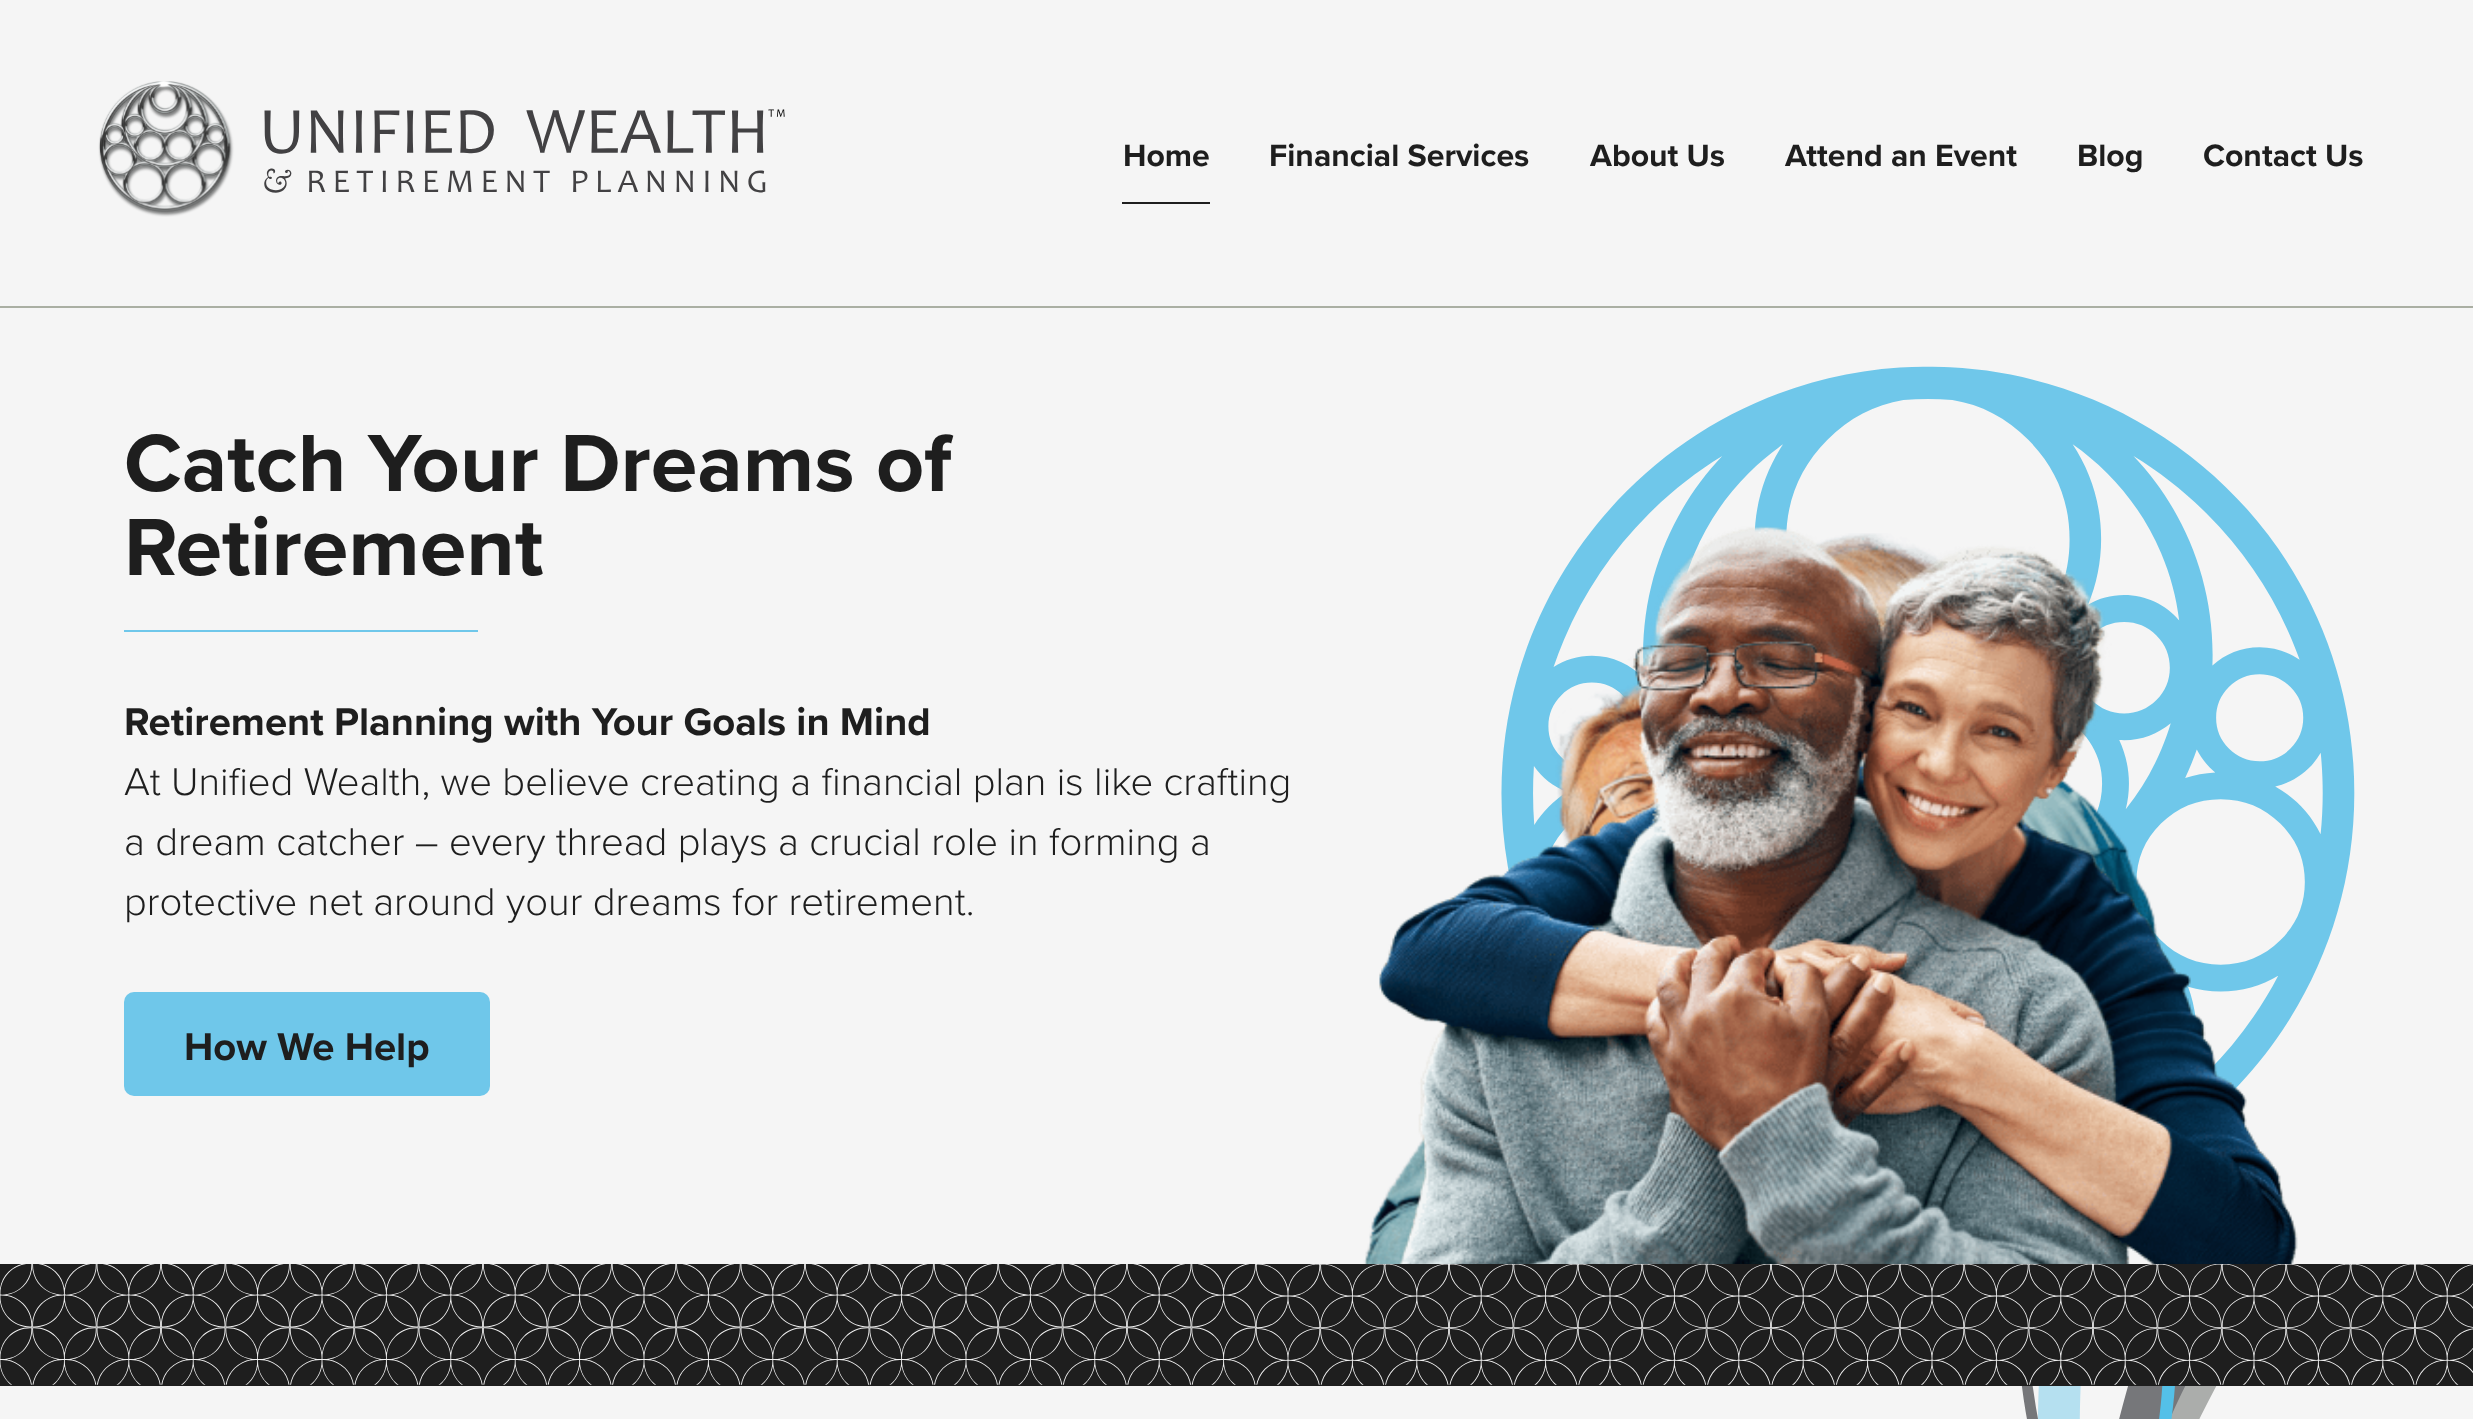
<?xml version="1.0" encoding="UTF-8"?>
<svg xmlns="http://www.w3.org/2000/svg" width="2473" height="1419">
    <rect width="100%" height="100%" fill="#F5F5F5"/>
    <rect x="0" y="306" width="2473" height="2" fill="#AAAFA3"/>
    <image x="98" y="81" width="687" height="136" href="img_01.png"/>
    <rect x="1122" y="202" width="88" height="2" fill="#1E1E1E"/>
    <text x="1123" y="166" font-family="Proxima Nova" font-size="32" font-weight="700" fill="#1E1E1E">Home</text>
    <text x="1269" y="166" font-family="Proxima Nova" font-size="32" font-weight="700" fill="#1E1E1E">Financial Services</text>
    <text x="1590" y="166" font-family="Proxima Nova" font-size="32" font-weight="700" fill="#1E1E1E">About Us</text>
    <text x="1785" y="166" font-family="Proxima Nova" font-size="32" font-weight="700" fill="#1E1E1E">Attend an Event</text>
    <text x="2077" y="166" font-family="Proxima Nova" font-size="32" font-weight="700" fill="#1E1E1E">Blog</text>
    <text x="2203" y="166" font-family="Proxima Nova" font-size="32" font-weight="700" fill="#1E1E1E">Contact Us</text>
    <image x="1501" y="366" width="854" height="724" href="img_02.png"/>
    <text font-family="Proxima Nova" font-size="84" font-weight="700" fill="#1E1E1E">
        <tspan x="124" y="491">Catch Your Dreams of</tspan>
        <tspan x="124" y="575">Retirement</tspan>
    </text>
    <rect x="124" y="630" width="354" height="2" fill="#6FC7EA"/>
    <text x="124" y="735" font-family="Proxima Nova" font-size="40" font-weight="700" fill="#1E1E1E">Retirement Planning with Your Goals in Mind</text>
    <text font-family="Proxima Nova" font-size="40" font-weight="300" fill="#1E1E1E">
        <tspan x="124" y="795">At Unified Wealth, we believe creating a financial plan is like crafting</tspan>
        <tspan x="124" y="855">a dream catcher – every thread plays a crucial role in forming a</tspan>
        <tspan x="124" y="915">protective net around your dreams for retirement.</tspan>
    </text>
    <rect x="124" y="992" width="366" height="104" rx="10" fill="#6FC7EA"/>
    <text x="184" y="1060" font-family="Proxima Nova" font-size="40" font-weight="700" fill="#1E1E1E">How We Help</text>
    <image x="1363" y="533" width="802" height="731" href="img_04.png"/>
    <image x="1379" y="526" width="919" height="738" href="img_03.png"/>
    <rect x="0" y="1264" width="2473" height="122" fill="#1E1E1E"/>
    <image x="0" y="1264" width="2473" height="121" href="img_05.png"/>
    <image x="2021" y="1386" width="196" height="33" href="img_06.png"/>
</svg>
